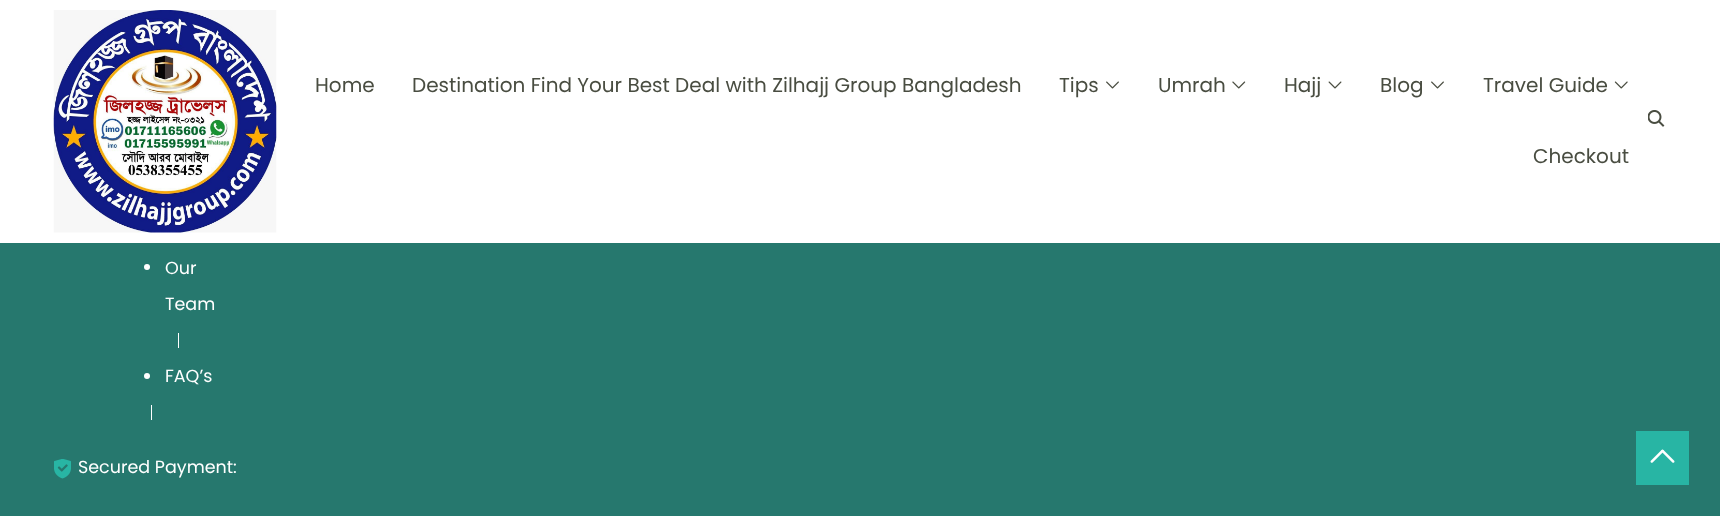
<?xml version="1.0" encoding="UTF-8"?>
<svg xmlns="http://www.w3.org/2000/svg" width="1720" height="516">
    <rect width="100%" height="100%" fill="#26786E"/>
    <rect x="0" y="0" width="1720" height="243" fill="#FFFFFF"/>
    <image x="53" y="10" width="224" height="223" href="img_01.png"/>
    <text x="315" y="92" font-family="Poppins" font-size="20" fill="#494D41">Home</text>
    <text x="412" y="92" font-family="Poppins" font-size="20" fill="#494D41">Destination Find Your Best Deal with Zilhajj Group Bangladesh</text>
    <text x="1059" y="92" font-family="Poppins" font-size="20" fill="#494D41">Tips</text>
    <image x="1106" y="81" width="13" height="8" href="img_02.png"/>
    <text x="1158" y="92" font-family="Poppins" font-size="20" fill="#494D41">Umrah</text>
    <image x="1232" y="81" width="14" height="8" href="img_03.png"/>
    <text x="1284" y="92" font-family="Poppins" font-size="20" fill="#494D41">Hajj</text>
    <image x="1328" y="81" width="14" height="8" href="img_04.png"/>
    <text x="1380" y="92" font-family="Poppins" font-size="20" fill="#494D41">Blog</text>
    <image x="1431" y="81" width="13" height="8" href="img_02.png"/>
    <text x="1483" y="92" font-family="Poppins" font-size="20" fill="#494D41">Travel Guide</text>
    <image x="1614" y="81" width="14" height="8" href="img_05.png"/>
    <text x="1533" y="163" font-family="Poppins" font-size="20" fill="#494D41">Checkout</text>
    <image x="1648" y="110" width="17" height="17" href="img_06.png"/>
    <circle cx="147" cy="267" r="3" fill="#FFFFFF"/>
    <text x="165" y="274" font-family="Poppins" font-size="17.5" fill="#FFFFFF">Our</text>
    <text x="165" y="310" font-family="Poppins" font-size="17.5" fill="#FFFFFF">Team</text>
    <rect x="178" y="333" width="1" height="15" fill="#FFFFFF"/>
    <circle cx="147" cy="376" r="3" fill="#FFFFFF"/>
    <text x="165" y="382" font-family="Poppins" font-size="17.5" fill="#FFFFFF">FAQ’s</text>
    <rect x="151" y="405" width="1" height="15" fill="#FFFFFF"/>
    <image x="54" y="459" width="17" height="20" href="img_07.png"/>
    <text x="78" y="473" font-family="Poppins" font-size="17.5" fill="#FFFFFF">Secured Payment:</text>
    <rect x="1636" y="431" width="53" height="54" fill="#28B5A4"/>
    <image x="1650" y="449" width="25" height="14" href="img_08.png"/>
</svg>
